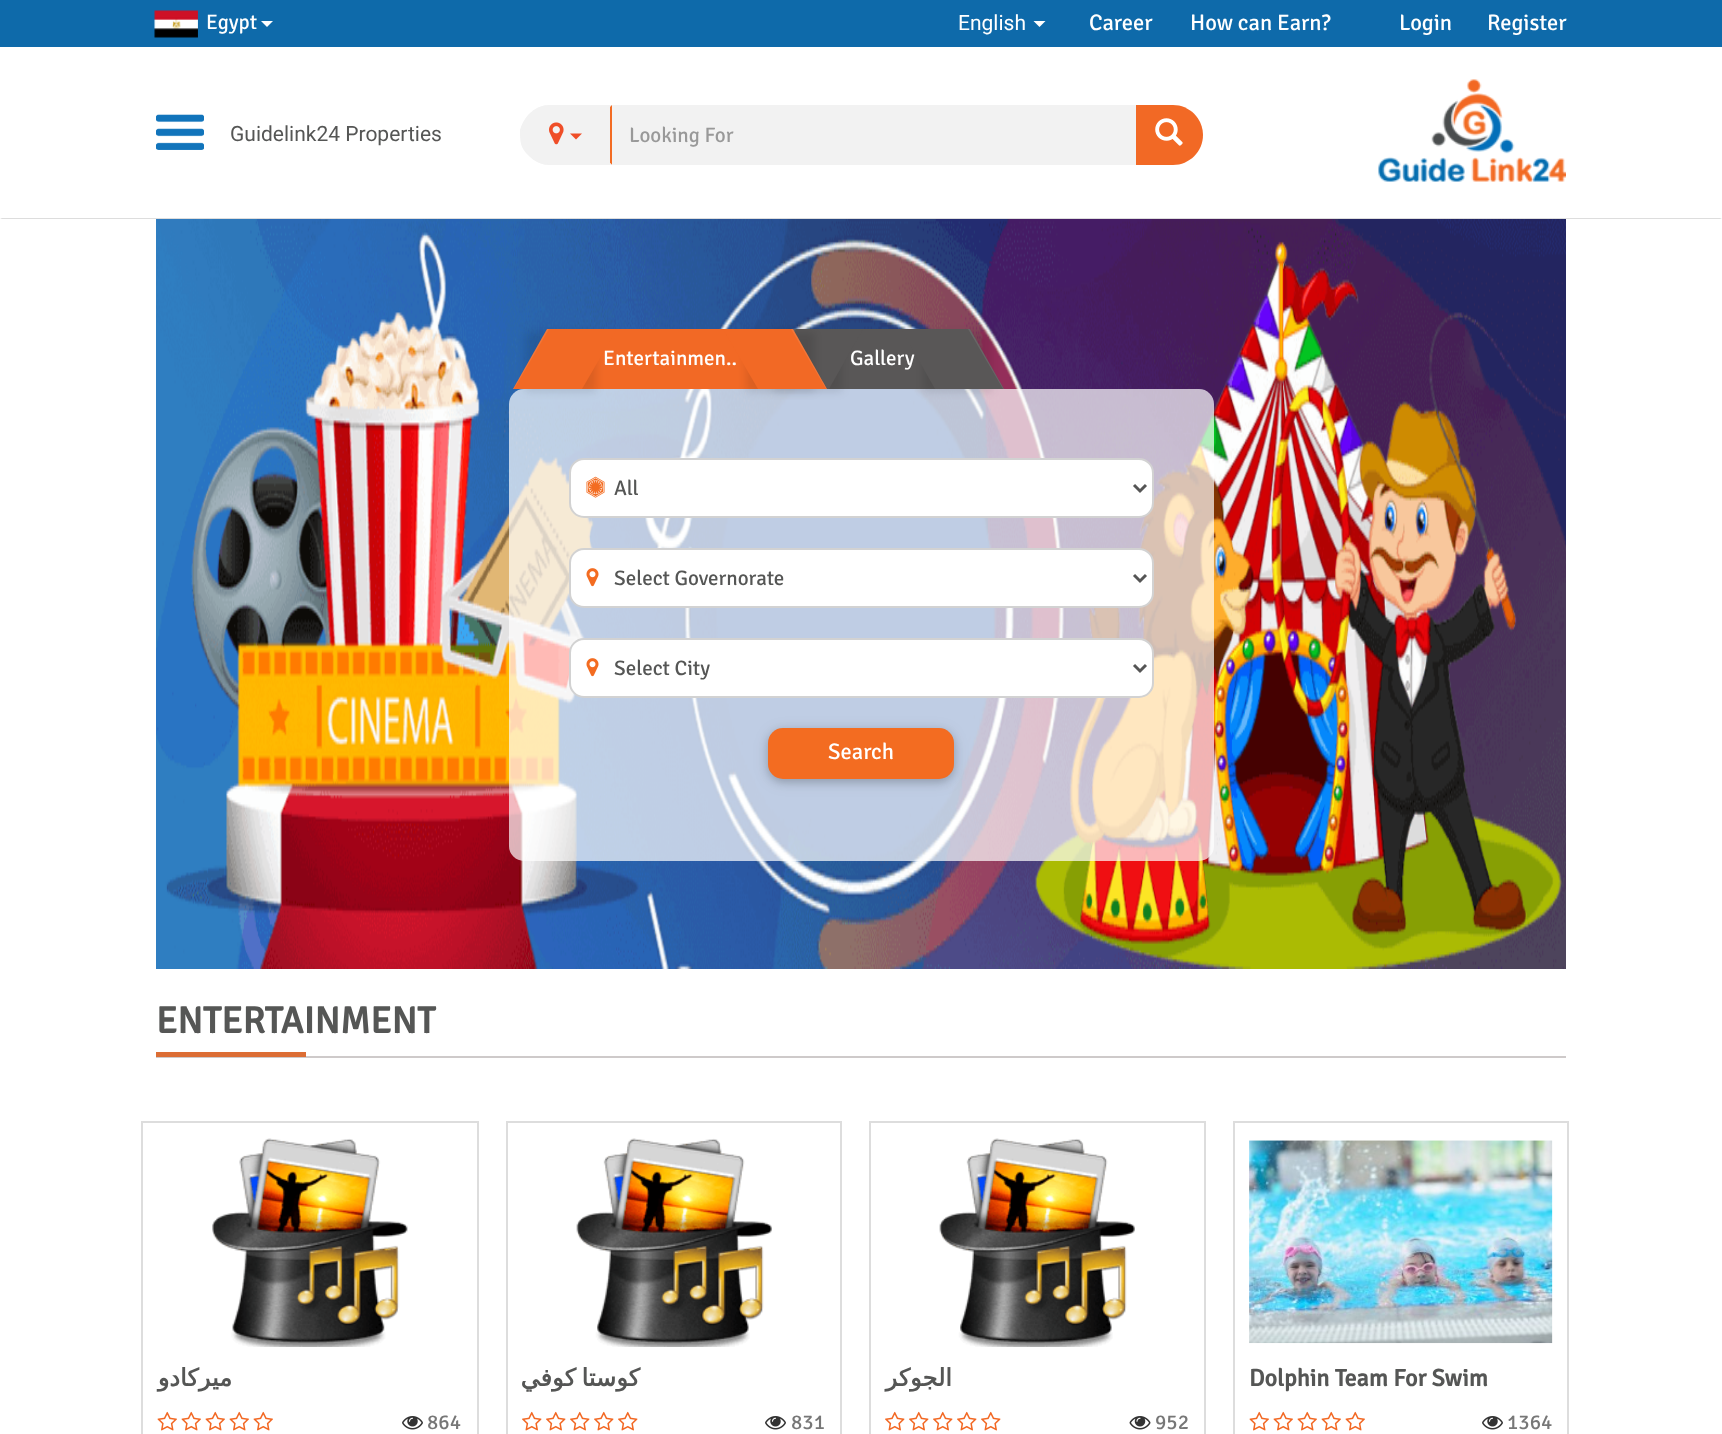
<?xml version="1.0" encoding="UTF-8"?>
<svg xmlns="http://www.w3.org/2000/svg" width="1722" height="1434">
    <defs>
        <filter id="blur1" x="-50%" y="-200%" width="200%" height="500%"><feGaussianBlur stdDeviation="4"/></filter>
        <filter id="blur2" x="-50%" y="-200%" width="200%" height="500%"><feGaussianBlur stdDeviation="7.5"/></filter>
    </defs>
    <rect width="100%" height="100%" fill="#FFFFFF"/>
    <rect x="0" y="0" width="1722" height="47" fill="#0E6AAA"/>
    <image x="154" y="10" width="44" height="28" href="img_01.png"/>
    <text x="206" y="29" font-family="Signika" font-size="21" font-weight="300" fill="#FFFFFF">Egypt</text>
    <path d="M 261 21 H 273 L 267 27 Z" fill="#FFFFFF"/>
    <text x="958" y="30" font-family="Roboto" font-size="21" fill="#FFFFFF">English</text>
    <path d="M 1033.5 21 H 1045.5 L 1039.5 27 Z" fill="#FFFFFF"/>
    <text x="1089" y="30" font-family="Signika" font-size="22.5" font-weight="300" fill="#FFFFFF">Career</text>
    <text x="1190" y="30" font-family="Signika" font-size="22.5" font-weight="300" fill="#FFFFFF">How can Earn?</text>
    <text x="1399" y="30" font-family="Signika" font-size="22.5" font-weight="300" fill="#FFFFFF">Login</text>
    <text x="1487" y="30" font-family="Signika" font-size="22.5" font-weight="300" fill="#FFFFFF">Register</text>
    <path d="M 1722 219 H 0 L 2 218 H 1720 Z" fill="#DDDDDD"/>
    <image x="156" y="114" width="48" height="36" href="img_02.png"/>
    <text x="230" y="141" font-family="Roboto" font-size="21" fill="#555655">Guidelink24 Properties</text>
    <path d="M 551 105 H 612 V 165 H 551 C 534.5 165 521 151.5 521 135 C 521 118.5 534.5 105 551 105 Z" fill="#F2F2F2"/>
    <path d="M 550 105 C 542 105 535 108 529 114 L 530 115 C 535 109 542 106 550 106 H 610 V 107 L 612 105 Z" fill="#F2F2F2"/>
    <path d="M 612 105 L 610 107 V 163 L 612 165 Z" fill="#F36C23"/>
    <path d="M 612 165 L 610 163 V 164 H 550 C 542 164 535 161 530 155 L 529 156 C 535 162 542 165 550 165 Z" fill="#F2F2F2"/>
    <path d="M 520 130 C 522 123 525 118 529 114 L 530 115 C 519 126 519 144 530 155 L 529 156 C 520 148 520 141 520 130 Z" fill="#F2F2F2"/>
    <image x="549" y="122" width="15" height="23" href="img_03.png"/>
    <path d="M 570 133.5 H 582 L 576 139.5 Z" fill="#EF4E28"/>
    <rect x="612" y="105" width="524" height="60" fill="#F2F2F2"/>
    <text x="629" y="142" font-family="Signika" font-size="21" font-weight="300" fill="#999999">Looking For</text>
    <path d="M 1136 105 H 1173 C 1189.5 105 1203 118.5 1203 135 C 1203 151.5 1189.5 165 1173 165 H 1136 Z" fill="#F26925"/>
    <image x="1155" y="118" width="28" height="28" href="img_04.png"/>
    <image x="1378" y="79" width="188" height="103" href="img_05.png"/>
    <image x="156" y="219" width="1410" height="750" href="img_06.png"/>
    <rect x="582" y="329" width="176" height="60" fill="#F26925"/>
    <rect x="509" y="389" width="705" height="472" rx="15" fill="#FFFFFF" fill-opacity="0.7"/>
    <rect x="525" y="332" width="71" height="60" fill="#000000" fill-opacity="0.1" filter="url(#blur1)"/>
    <text x="603" y="365" font-family="Signika" font-size="21" font-weight="300" fill="#FFFFFF">Entertainmen..</text>
    <path d="M 547 329 H 617 L 582 389 H 513 Z" fill="#F26925"/>
    <path d="M 547 329 H 549 L 514 389 H 513 Z" fill="#FFFFFF" fill-opacity="0.09"/>
    <rect x="829" y="329" width="106" height="60" fill="#595757"/>
    <rect x="773" y="332" width="69" height="60" fill="#000000" fill-opacity="0.1" filter="url(#blur1)"/>
    <text x="850" y="365" font-family="Signika" font-size="21" font-weight="300" fill="#FFFFFF">Gallery</text>
    <path d="M 794 329 H 863 L 829 389 H 759 Z" fill="#595757"/>
    <path d="M 794 329 H 796 L 761 389 H 759 Z" fill="#FFFFFF" fill-opacity="0.09"/>
    <rect x="746" y="332" width="69" height="60" fill="#000000" fill-opacity="0.1" filter="url(#blur1)"/>
    <path d="M 723 329 H 793 L 827 389 H 758 Z" fill="#F26925"/>
    <path d="M 791 329 H 793 L 827 389 H 826 Z" fill="#FFFFFF" fill-opacity="0.09"/>
    <rect x="923" y="332" width="69" height="60" fill="#000000" fill-opacity="0.1" filter="url(#blur1)"/>
    <path d="M 901 329 H 970 L 1004 389 H 935 Z" fill="#595757"/>
    <path d="M 968 329 H 970 L 1004 389 H 1003 Z" fill="#FFFFFF" fill-opacity="0.09"/>
    <rect x="570" y="459" width="583" height="58" rx="14" fill="#FFFFFF" stroke="#D2D2D2" stroke-width="2"/>
    <image x="586" y="476" width="19" height="22" href="img_07.png"/>
    <path d="M 1134 485 L 1140 491 L 1146 485" fill="none" stroke="#555555" stroke-width="3"/>
    <text x="614" y="495" font-family="Signika" font-size="21" font-weight="300" fill="#555655">All</text>
    <rect x="570" y="549" width="583" height="58" rx="14" fill="#FFFFFF" stroke="#D2D2D2" stroke-width="2"/>
    <image x="586" y="568" width="13" height="19" href="img_08.png"/>
    <path d="M 1134 575 L 1140 581 L 1146 575" fill="none" stroke="#555555" stroke-width="3"/>
    <text x="614" y="585" font-family="Signika" font-size="21" font-weight="300" fill="#555655">Select Governorate</text>
    <rect x="570" y="639" width="583" height="58" rx="14" fill="#FFFFFF" stroke="#D2D2D2" stroke-width="2"/>
    <image x="586" y="658" width="13" height="19" href="img_08.png"/>
    <path d="M 1134 665 L 1140 671 L 1146 665" fill="none" stroke="#555555" stroke-width="3"/>
    <text x="614" y="675" font-family="Signika" font-size="21" font-weight="300" fill="#555655">Select City</text>
    <rect x="768" y="731" width="186" height="51" rx="15" fill="#000000" fill-opacity="0.12" filter="url(#blur2)"/>
    <rect x="768" y="731" width="186" height="51" rx="15" fill="#000000" fill-opacity="0.16" filter="url(#blur1)"/>
    <rect x="768" y="728" width="186" height="51" rx="15" fill="#F36C21"/>
    <text x="828" y="759" font-family="Signika" font-size="22.5" font-weight="300" fill="#FFFFFF">Search</text>
    <text x="156" y="1033" font-family="Signika" font-size="37.5" font-weight="700" fill="#555655">ENTERTAINMENT</text>
    <rect x="156" y="1056" width="1410" height="2" fill="#CECACA"/>
    <rect x="156" y="1052" width="150" height="5" fill="#DC6D34"/>
    <rect x="142" y="1122" width="336" height="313" fill="none" stroke="#DDDDDD" stroke-width="2"/>
    <image x="212" y="1138" width="196" height="209" href="img_09.png"/>
    <text x="232" y="1386" font-family="DejaVu Sans" font-size="24" font-weight="700" direction="rtl" fill="#555655">ميركادو</text>
    <image x="157" y="1411" width="20" height="20" href="img_10.png"/>
    <image x="181" y="1411" width="20" height="20" href="img_10.png"/>
    <image x="205" y="1411" width="20" height="20" href="img_10.png"/>
    <image x="229" y="1411" width="20" height="20" href="img_10.png"/>
    <image x="253" y="1411" width="20" height="20" href="img_10.png"/>
    <image x="402" y="1416" width="21" height="14" href="img_11.png"/>
    <text x="427" y="1429" font-family="Signika" font-size="21" font-weight="300" fill="#777777">864</text>
    <rect x="507" y="1122" width="334" height="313" fill="none" stroke="#DDDDDD" stroke-width="2"/>
    <image x="576" y="1138" width="196" height="209" href="img_12.png"/>
    <text x="640" y="1386" word-spacing="-2" font-family="DejaVu Sans" font-size="24" font-weight="700" direction="rtl" fill="#555655">كوستا كوفي</text>
    <image x="522" y="1411" width="20" height="20" href="img_13.png"/>
    <image x="546" y="1411" width="20" height="20" href="img_13.png"/>
    <image x="570" y="1411" width="20" height="20" href="img_13.png"/>
    <image x="594" y="1411" width="20" height="20" href="img_13.png"/>
    <image x="618" y="1411" width="20" height="20" href="img_13.png"/>
    <image x="765" y="1416" width="21" height="14" href="img_11.png"/>
    <text x="791" y="1429" font-family="Signika" font-size="21" font-weight="300" fill="#777777">831</text>
    <rect x="870" y="1122" width="335" height="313" fill="none" stroke="#DDDDDD" stroke-width="2"/>
    <image x="939" y="1138" width="196" height="209" href="img_14.png"/>
    <text x="952" y="1386" font-family="DejaVu Sans" font-size="24" font-weight="700" direction="rtl" fill="#555655">الجوكر</text>
    <image x="885" y="1411" width="20" height="20" href="img_13.png"/>
    <image x="909" y="1411" width="20" height="20" href="img_13.png"/>
    <image x="933" y="1411" width="20" height="20" href="img_13.png"/>
    <image x="957" y="1411" width="20" height="20" href="img_13.png"/>
    <image x="981" y="1411" width="20" height="20" href="img_13.png"/>
    <image x="1129" y="1416" width="22" height="14" href="img_15.png"/>
    <text x="1155" y="1429" font-family="Signika" font-size="21" font-weight="300" fill="#777777">952</text>
    <rect x="1234" y="1122" width="334" height="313" fill="none" stroke="#DDDDDD" stroke-width="2"/>
    <image x="1249" y="1140" width="304" height="204" href="img_16.png"/>
    <text x="1249" y="1386" font-family="Signika" font-size="24" font-weight="700" fill="#555655">Dolphin Team For Swim</text>
    <image x="1249" y="1411" width="20" height="20" href="img_10.png"/>
    <image x="1273" y="1411" width="20" height="20" href="img_10.png"/>
    <image x="1297" y="1411" width="20" height="20" href="img_10.png"/>
    <image x="1321" y="1411" width="20" height="20" href="img_10.png"/>
    <image x="1345" y="1411" width="20" height="20" href="img_10.png"/>
    <image x="1482" y="1416" width="21" height="14" href="img_11.png"/>
    <text x="1507" y="1429" font-family="Signika" font-size="21" font-weight="300" fill="#777777">1364</text>
</svg>
